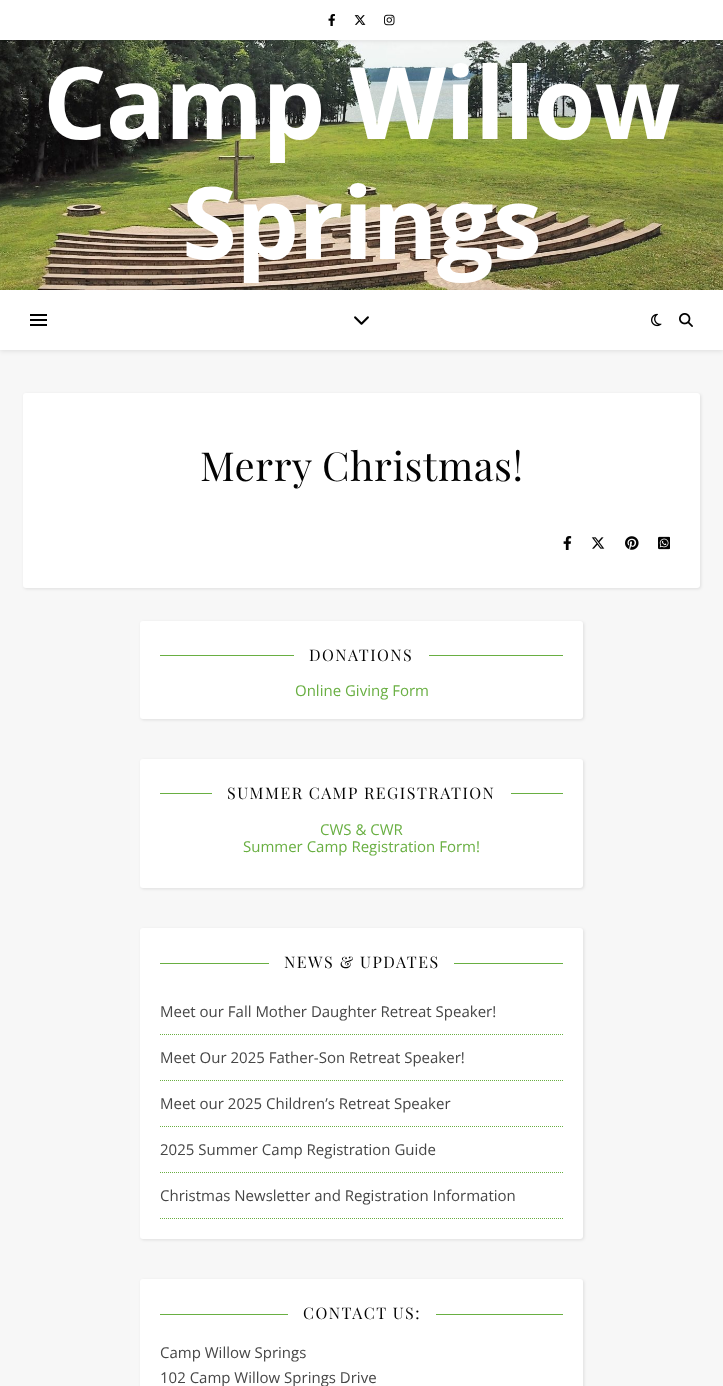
<?xml version="1.0" encoding="UTF-8"?>
<svg xmlns="http://www.w3.org/2000/svg" width="723" height="1386">
    <defs>
        <filter id="blur1" x="-50%" y="-200%" width="200%" height="500%"><feGaussianBlur stdDeviation="2.5"/></filter>
        <filter id="blur2" x="-50%" y="-200%" width="200%" height="500%"><feGaussianBlur stdDeviation="1.5"/></filter>
    </defs>
    <rect width="100%" height="100%" fill="#F7F7F7"/>
    <image x="0" y="40" width="723" height="250" href="img_01.png"/>
    <rect x="0" y="1" width="723" height="40" fill="#000000" fill-opacity="0.1" filter="url(#blur1)"/>
    <rect x="0" y="0" width="723" height="40" fill="#FFFFFF"/>
    <image x="328" y="14" width="7" height="12" href="img_02.png"/>
    <image x="354" y="15" width="12" height="10" href="img_03.png"/>
    <image x="384" y="14" width="11" height="12" href="img_04.png"/>
    <text x="43" y="139" font-family="Open Sans" font-size="100" font-weight="700" letter-spacing="-1" fill="#FFFFFF">Camp Willow</text>
    <text x="182" y="259" font-family="Open Sans" font-size="100" font-weight="700" letter-spacing="-1" fill="#FFFFFF">Springs</text>
    <rect x="0" y="291" width="723" height="60" fill="#000000" fill-opacity="0.1" filter="url(#blur1)"/>
    <rect x="0" y="290" width="723" height="60" fill="#FFFFFF"/>
    <rect x="30" y="314" width="17" height="2" fill="#000000"/>
    <rect x="30" y="319" width="17" height="2" fill="#000000"/>
    <rect x="30" y="324" width="17" height="2" fill="#000000"/>
    <image x="354" y="316" width="15" height="9" href="img_05.png"/>
    <image x="651" y="313" width="11" height="14" href="img_06.png"/>
    <image x="679" y="313" width="14" height="14" href="img_07.png"/>
    <rect x="24" y="394" width="677" height="195" rx="3" fill="#000000" fill-opacity="0.1" filter="url(#blur2)"/>
    <rect x="23" y="393" width="677" height="195" rx="3" fill="#FFFFFF"/>
    <text x="200" y="481" font-family="Playfair Display" font-size="40" letter-spacing="0.5" fill="#030303">Merry Christmas!</text>
    <image x="563" y="536" width="9" height="14" href="img_08.png"/>
    <image x="591" y="537" width="14" height="12" href="img_09.png"/>
    <image x="625" y="536" width="14" height="14" href="img_10.png"/>
    <image x="658" y="536" width="12" height="14" href="img_11.png"/>
    <rect x="141" y="622" width="443" height="98" rx="3" fill="#000000" fill-opacity="0.1" filter="url(#blur2)"/>
    <rect x="140" y="621" width="443" height="98" rx="3" fill="#FFFFFF"/>
    <rect x="160" y="655" width="134" height="1" fill="#69AF42"/>
    <text x="309" y="661" font-family="Playfair Display" font-size="16" letter-spacing="1.5" fill="#030303">DONATIONS</text>
    <rect x="429" y="655" width="134" height="1" fill="#69AF42"/>
    <text x="295" y="696" font-family="Open Sans" font-size="15" fill="#69AF42">Online Giving Form</text>
    <rect x="141" y="760" width="443" height="129" rx="3" fill="#000000" fill-opacity="0.1" filter="url(#blur2)"/>
    <rect x="140" y="759" width="443" height="129" rx="3" fill="#FFFFFF"/>
    <rect x="160" y="793" width="52" height="1" fill="#69AF42"/>
    <text x="227" y="799" font-family="Playfair Display" font-size="16" letter-spacing="1.5" fill="#030303">SUMMER CAMP REGISTRATION</text>
    <rect x="511" y="793" width="52" height="1" fill="#69AF42"/>
    <text x="320" y="835" font-family="Open Sans" font-size="15" fill="#69AF42">CWS &amp; CWR</text>
    <text x="243" y="852" font-family="Open Sans" font-size="15" fill="#69AF42">Summer Camp Registration Form!</text>
    <rect x="141" y="929" width="443" height="311" rx="3" fill="#000000" fill-opacity="0.1" filter="url(#blur2)"/>
    <rect x="140" y="928" width="443" height="311" rx="3" fill="#FFFFFF"/>
    <rect x="160" y="963" width="109" height="1" fill="#69AF42"/>
    <text x="284" y="968" font-family="Playfair Display" font-size="16" letter-spacing="1.5" fill="#030303">NEWS &amp; UPDATES</text>
    <rect x="454" y="963" width="109" height="1" fill="#69AF42"/>
    <path d="M 160 1034.5 H 563" fill="none" stroke="#69AF42" stroke-dasharray="1 1"/>
    <text x="160" y="1017" font-family="Open Sans" font-size="15" fill="#464646">Meet our Fall Mother Daughter Retreat Speaker!</text>
    <path d="M 160 1080.5 H 563" fill="none" stroke="#69AF42" stroke-dasharray="1 1"/>
    <text x="160" y="1063" font-family="Open Sans" font-size="15" fill="#464646">Meet Our 2025 Father-Son Retreat Speaker!</text>
    <path d="M 160 1126.5 H 563" fill="none" stroke="#69AF42" stroke-dasharray="1 1"/>
    <text x="160" y="1109" font-family="Open Sans" font-size="15" fill="#464646">Meet our 2025 Children’s Retreat Speaker</text>
    <path d="M 160 1172.5 H 563" fill="none" stroke="#69AF42" stroke-dasharray="1 1"/>
    <text x="160" y="1155" font-family="Open Sans" font-size="15" fill="#464646">2025 Summer Camp Registration Guide</text>
    <path d="M 160 1218.5 H 563" fill="none" stroke="#69AF42" stroke-dasharray="1 1"/>
    <text x="160" y="1201" font-family="Open Sans" font-size="15" fill="#464646">Christmas Newsletter and Registration Information</text>
    <rect x="141" y="1280" width="443" height="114" rx="3" fill="#000000" fill-opacity="0.1" filter="url(#blur2)"/>
    <rect x="140" y="1279" width="443" height="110" rx="3" fill="#FFFFFF"/>
    <rect x="160" y="1314" width="128" height="1" fill="#69AF42"/>
    <text x="303" y="1319" font-family="Playfair Display" font-size="16" letter-spacing="1.5" fill="#030303">CONTACT US:</text>
    <rect x="436" y="1314" width="127" height="1" fill="#69AF42"/>
    <text font-family="Open Sans" font-size="15" fill="#464646">
        <tspan x="160" y="1358">Camp Willow Springs</tspan>
        <tspan x="160" y="1383">102 Camp Willow Springs Drive</tspan>
    </text>
</svg>
